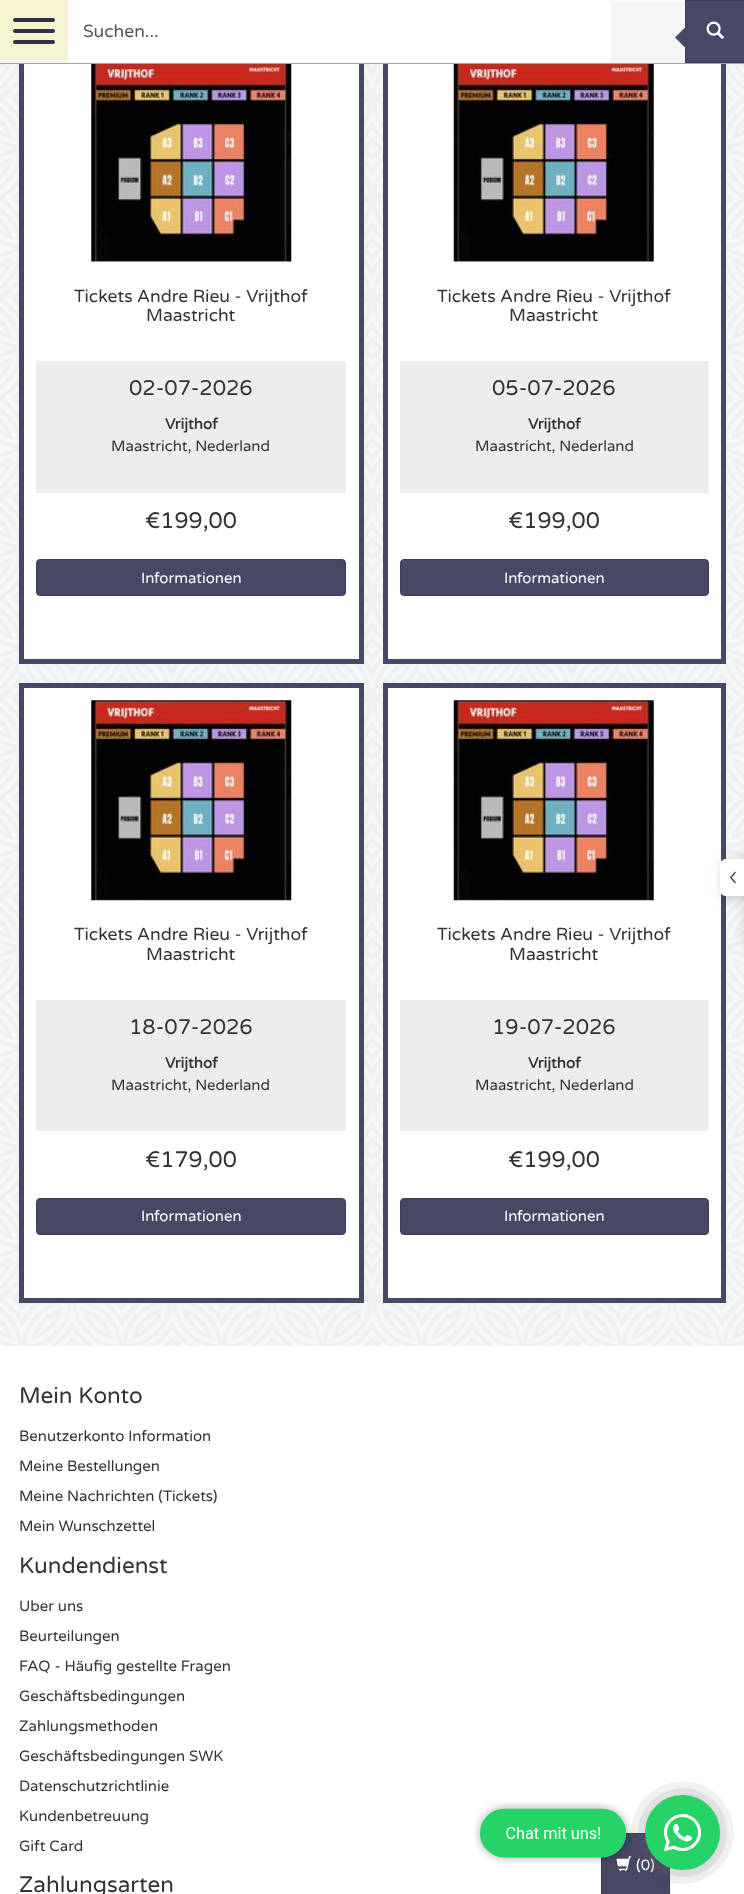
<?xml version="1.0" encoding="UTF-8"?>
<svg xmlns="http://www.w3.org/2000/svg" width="744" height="1894">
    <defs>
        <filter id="blur1" x="-50%" y="-200%" width="200%" height="500%"><feGaussianBlur stdDeviation="0.5"/></filter>
        <filter id="blur2" x="-50%" y="-200%" width="200%" height="500%"><feGaussianBlur stdDeviation="6"/></filter>
        <clipPath id="clip1"><rect x="720" y="859" width="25" height="19"/></clipPath>
        <clipPath id="clip2"><rect x="720" y="878" width="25" height="18"/></clipPath>
    </defs>
    <rect width="100%" height="100%" fill="#FFFFFF"/>
    <image x="0" y="63" width="744" height="1283" href="img_01.png"/>
    <rect x="24" y="63" width="335" height="596" fill="#FFFFFF"/>
    <rect x="21.5" y="46.5" width="340" height="615" fill="none" stroke="#474766" stroke-width="5"/>
    <image x="91" y="63" width="201" height="199" href="img_03.png"/>
    <rect x="388" y="63" width="333" height="596" fill="#FFFFFF"/>
    <rect x="385.5" y="46.5" width="338" height="615" fill="none" stroke="#474766" stroke-width="5"/>
    <image x="453" y="63" width="201" height="199" href="img_04.png"/>
    <rect x="0" y="1" width="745" height="63" fill="#999999" filter="url(#blur1)"/>
    <rect x="0" y="1" width="685" height="62" fill="#F5F5F5"/>
    <rect x="0" y="0" width="68" height="60" fill="#F6F4D0"/>
    <rect x="13" y="18" width="42" height="4" rx="2" fill="#313147"/>
    <rect x="13" y="29" width="42" height="4" rx="2" fill="#313147"/>
    <rect x="13" y="40" width="42" height="4" rx="2" fill="#313147"/>
    <path d="M -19 1 V 64 H 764 V 1 V 62 H -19 Z" fill="#FFFFFF" fill-opacity="0.1"/>
    <rect x="68" y="0" width="543" height="63" fill="#FFFFFF"/>
    <text x="83" y="37" font-family="Varela Round" font-size="17.5" fill="#555555">Suchen...</text>
    <rect x="685.5" y="0.5" width="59" height="62" fill="#474766" stroke="#3C3C56"/>
    <path d="M 690 22.5 V 52.5 L 675 37.5 Z" fill="#474766"/>
    <image x="706" y="21" width="18" height="18" href="img_02.png"/>
    <text x="74" y="302" font-family="Varela Round" font-size="17.5" fill="#333333">Tickets Andre Rieu - Vrijthof</text>
    <text x="146" y="321" font-family="Varela Round" font-size="17.5" fill="#333333">Maastricht</text>
    <rect x="36" y="361" width="310" height="132" fill="#EDEDED"/>
    <text x="129" y="395" font-family="Varela Round" font-size="21.25" fill="#333333">02-07-2026</text>
    <text x="165" y="429" font-family="Varela Round" font-size="15" font-weight="700" fill="#333333">Vrijthof</text>
    <text x="111" y="451" font-family="Varela Round" font-size="15" fill="#333333">Maastricht, Nederland</text>
    <text x="145" y="528" font-family="Varela Round" font-size="22.5" fill="#333333">€199,00</text>
    <rect x="36.5" y="559.5" width="309" height="36" rx="3.5" fill="#474766" stroke="#3C3C56"/>
    <text x="141" y="583" font-family="Varela Round" font-size="15" fill="#FFFFFF">Informationen</text>
    <text x="437" y="302" font-family="Varela Round" font-size="17.5" fill="#333333">Tickets Andre Rieu - Vrijthof</text>
    <text x="509" y="321" font-family="Varela Round" font-size="17.5" fill="#333333">Maastricht</text>
    <rect x="400" y="361" width="309" height="132" fill="#EDEDED"/>
    <text x="492" y="395" font-family="Varela Round" font-size="21.25" fill="#333333">05-07-2026</text>
    <text x="528" y="429" font-family="Varela Round" font-size="15" font-weight="700" fill="#333333">Vrijthof</text>
    <text x="475" y="451" font-family="Varela Round" font-size="15" fill="#333333">Maastricht, Nederland</text>
    <text x="508" y="528" font-family="Varela Round" font-size="22.5" fill="#333333">€199,00</text>
    <rect x="400.5" y="559.5" width="308" height="36" rx="3.5" fill="#474766" stroke="#3C3C56"/>
    <text x="504" y="583" font-family="Varela Round" font-size="15" fill="#FFFFFF">Informationen</text>
    <rect x="21.5" y="685.5" width="340" height="615" fill="#FFFFFF" stroke="#474766" stroke-width="5"/>
    <image x="91" y="700" width="201" height="201" href="img_05.png"/>
    <text x="74" y="940" font-family="Varela Round" font-size="17.5" fill="#333333">Tickets Andre Rieu - Vrijthof</text>
    <text x="146" y="960" font-family="Varela Round" font-size="17.5" fill="#333333">Maastricht</text>
    <rect x="36" y="1000" width="310" height="131" fill="#EDEDED"/>
    <text x="129" y="1034" font-family="Varela Round" font-size="21.25" fill="#333333">18-07-2026</text>
    <text x="165" y="1068" font-family="Varela Round" font-size="15" font-weight="700" fill="#333333">Vrijthof</text>
    <text x="111" y="1090" font-family="Varela Round" font-size="15" fill="#333333">Maastricht, Nederland</text>
    <text x="145" y="1167" font-family="Varela Round" font-size="22.5" fill="#333333">€179,00</text>
    <rect x="36.5" y="1198.5" width="309" height="36" rx="3.5" fill="#474766" stroke="#3C3C56"/>
    <text x="141" y="1221" font-family="Varela Round" font-size="15" fill="#FFFFFF">Informationen</text>
    <rect x="385.5" y="685.5" width="338" height="615" fill="#FFFFFF" stroke="#474766" stroke-width="5"/>
    <image x="453" y="700" width="201" height="201" href="img_06.png"/>
    <text x="437" y="940" font-family="Varela Round" font-size="17.5" fill="#333333">Tickets Andre Rieu - Vrijthof</text>
    <text x="509" y="960" font-family="Varela Round" font-size="17.5" fill="#333333">Maastricht</text>
    <rect x="400" y="1000" width="309" height="131" fill="#EDEDED"/>
    <text x="492" y="1034" font-family="Varela Round" font-size="21.25" fill="#333333">19-07-2026</text>
    <text x="528" y="1068" font-family="Varela Round" font-size="15" font-weight="700" fill="#333333">Vrijthof</text>
    <text x="475" y="1090" font-family="Varela Round" font-size="15" fill="#333333">Maastricht, Nederland</text>
    <text x="508" y="1167" font-family="Varela Round" font-size="22.5" fill="#333333">€199,00</text>
    <rect x="400.5" y="1198.5" width="308" height="36" rx="3.5" fill="#474766" stroke="#3C3C56"/>
    <text x="504" y="1221" font-family="Varela Round" font-size="15" fill="#FFFFFF">Informationen</text>
    <rect x="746" y="848" width="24" height="103" rx="8" fill="#000000" fill-opacity="0.15" filter="url(#blur2)"/>
    <rect x="721" y="860" width="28" height="40" rx="8" fill="#000000" fill-opacity="0.15" filter="url(#blur2)"/>
    <path d="M 726 859 H 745 V 896 H 726 C 722.5 896 720 893.5 720 890 V 865 C 720 861.5 722.5 859 726 859 Z" fill="#FFFFFF"/>
    <g clip-path="url(#clip1)">
        <path d="M 735 871.5 L 736 872.5 L 718 894 L 717 893 Z" fill="#454545"/>
    </g>
    <g clip-path="url(#clip2)">
        <path d="M 717 862 L 718 861 L 736 882.5 L 735 883.5 Z" fill="#454545"/>
    </g>
    <text x="19" y="1403" font-family="Varela Round" font-size="22.5" fill="#333333">Mein Konto</text>
    <text x="19" y="1441" font-family="Varela Round" font-size="15" fill="#333333">Benutzerkonto Information</text>
    <text x="19" y="1471" font-family="Varela Round" font-size="15" fill="#333333">Meine Bestellungen</text>
    <text x="19" y="1501" font-family="Varela Round" font-size="15" fill="#333333">Meine Nachrichten (Tickets)</text>
    <text x="19" y="1531" font-family="Varela Round" font-size="15" fill="#333333">Mein Wunschzettel</text>
    <text x="19" y="1573" font-family="Varela Round" font-size="22.5" fill="#333333">Kundendienst</text>
    <text x="19" y="1611" font-family="Varela Round" font-size="15" fill="#333333">Uber uns</text>
    <text x="19" y="1641" font-family="Varela Round" font-size="15" fill="#333333">Beurteilungen</text>
    <text x="19" y="1671" font-family="Varela Round" font-size="15" fill="#333333">FAQ - Häufig gestellte Fragen</text>
    <text x="19" y="1701" font-family="Varela Round" font-size="15" fill="#333333">Geschäftsbedingungen</text>
    <text x="19" y="1731" font-family="Varela Round" font-size="15" fill="#333333">Zahlungsmethoden</text>
    <text x="19" y="1761" font-family="Varela Round" font-size="15" fill="#333333">Geschäftsbedingungen SWK</text>
    <text x="19" y="1791" font-family="Varela Round" font-size="15" fill="#333333">Datenschutzrichtlinie</text>
    <text x="19" y="1821" font-family="Varela Round" font-size="15" fill="#333333">Kundenbetreuung</text>
    <text x="19" y="1851" font-family="Varela Round" font-size="15" fill="#333333">Gift Card</text>
    <text x="19" y="1892" font-family="Varela Round" font-size="22.5" fill="#333333">Zahlungsarten</text>
    <rect x="601.5" y="1833.5" width="68" height="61" fill="#474766" stroke="#3C3C56"/>
    <image x="616" y="1856" width="16" height="16" href="img_09.png"/>
    <image x="474" y="1802" width="159" height="62" href="img_07.png"/>
    <text x="636" y="1870" font-family="Varela Round" font-size="15" fill="#FFFFFF">(0)</text>
    <image x="631" y="1781" width="103" height="103" href="img_08.png"/>
</svg>
